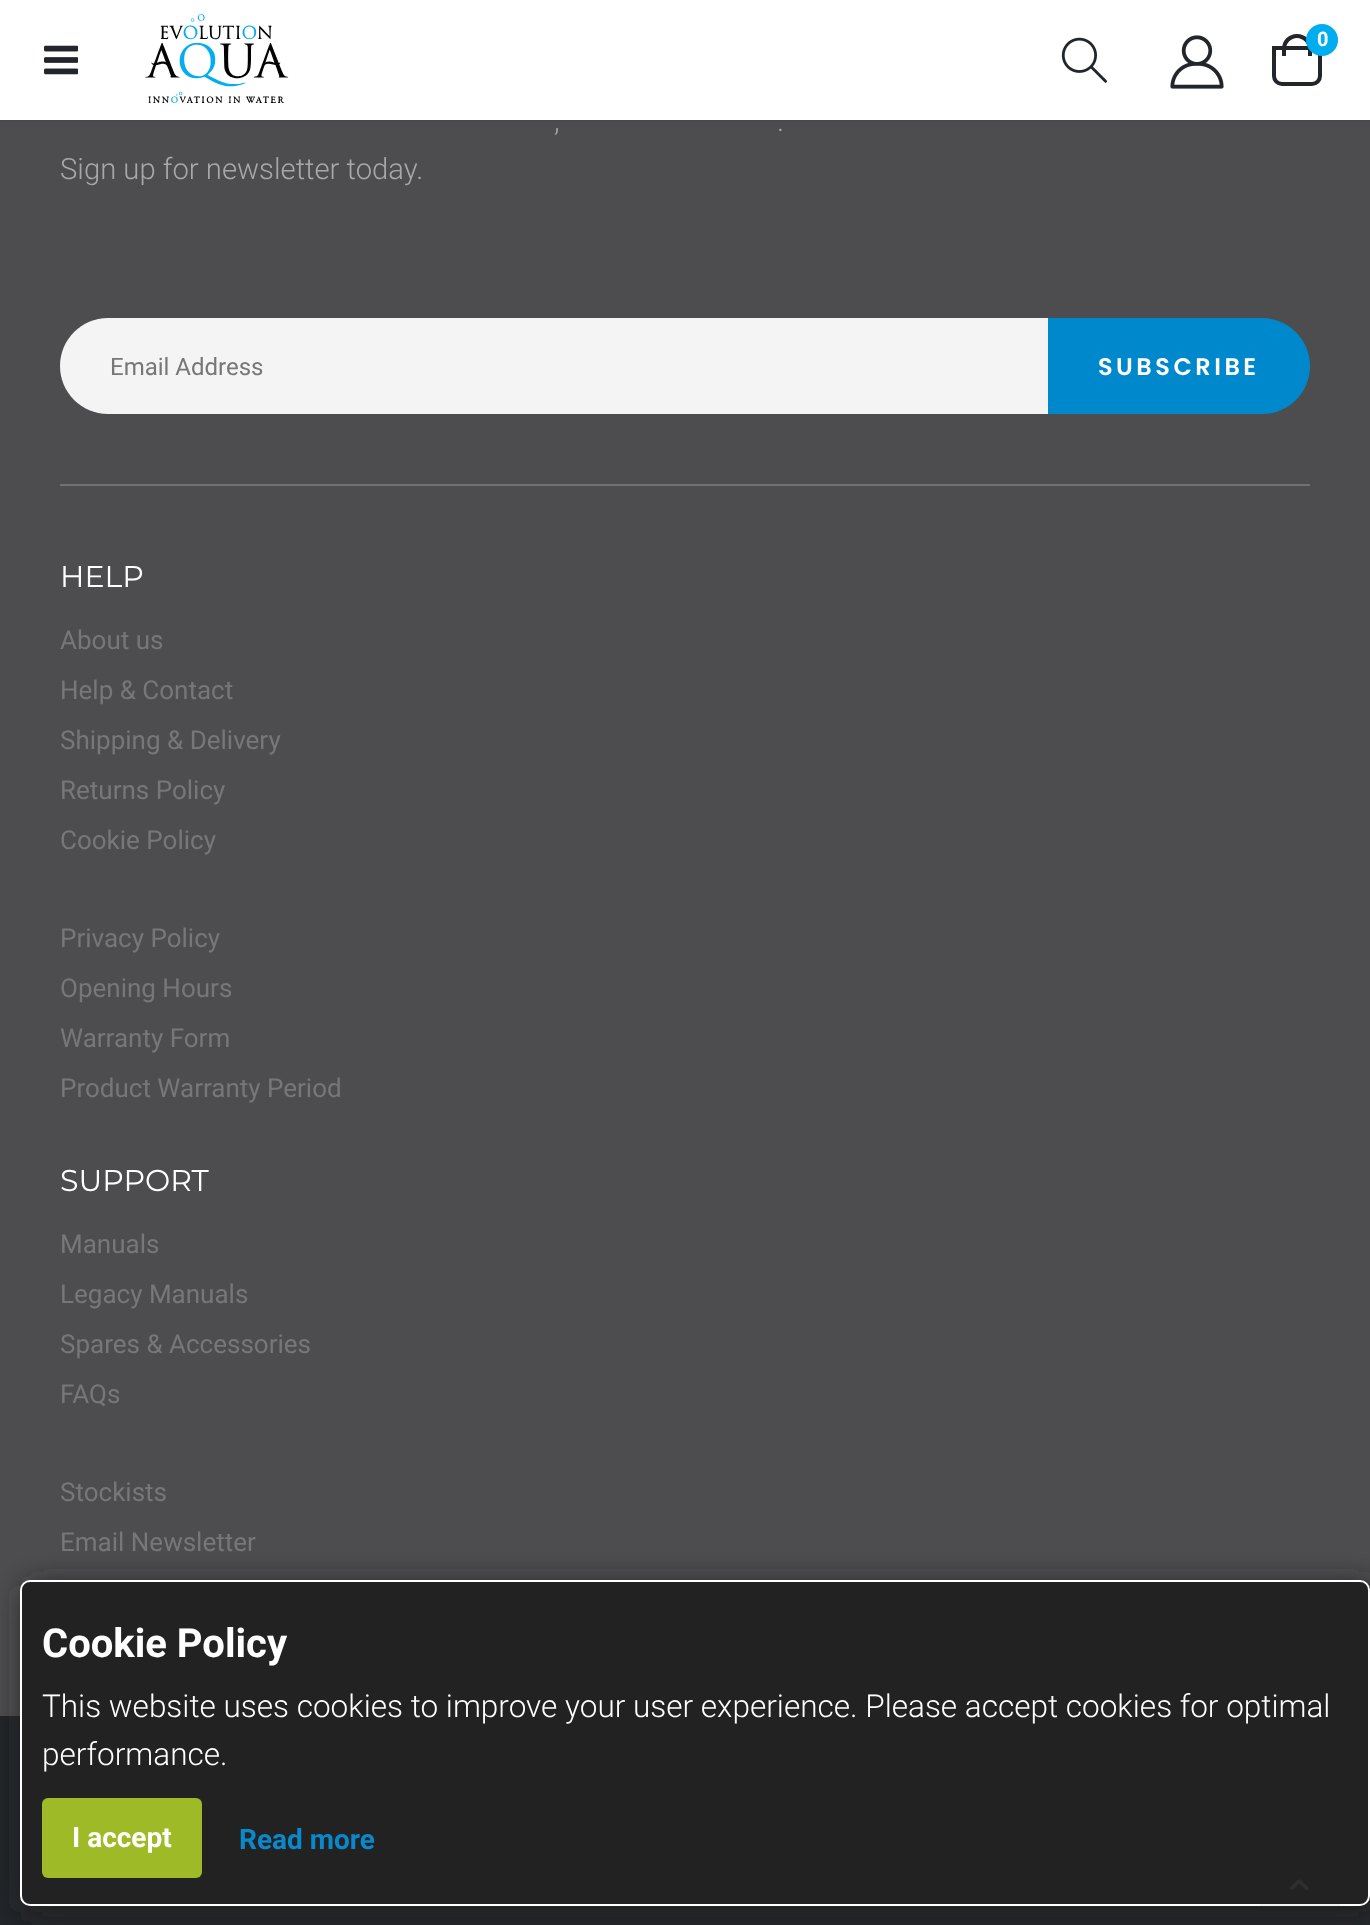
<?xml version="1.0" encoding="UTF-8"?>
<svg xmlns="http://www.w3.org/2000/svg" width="1370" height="1925">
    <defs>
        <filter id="blur1" x="-50%" y="-200%" width="200%" height="500%"><feGaussianBlur stdDeviation="15"/></filter>
    </defs>
    <rect width="100%" height="100%" fill="#4D4D4F"/>
    <rect x="0" y="120" width="1370" height="2" fill="#000000" fill-opacity="0.06"/>
    <rect x="0" y="0" width="1370" height="120" fill="#FFFFFF"/>
    <image x="44" y="45" width="34" height="30" href="img_01.png"/>
    <image x="145" y="14" width="144" height="89" href="img_02.png"/>
    <image x="1061" y="37" width="46" height="46" href="img_03.png"/>
    <image x="1170" y="35" width="54" height="54" href="img_04.png"/>
    <path d="M 1274 48 H 1320 V 76 C 1320 80.5 1316.5 84 1312 84 H 1282 C 1277.5 84 1274 80.5 1274 76 Z" fill="none" stroke="#222529" stroke-width="4"/>
    <path d="M 1297 34 C 1305.5 34 1312 40.5 1312 49 V 56 H 1282 V 49 C 1282 40.5 1288.5 34 1297 34 Z M 1297 38 C 1303 38 1308 43 1308 49 V 56 H 1286 V 49 C 1286 43 1291 38 1297 38 Z" fill="#222529" fill-rule="evenodd"/>
    <circle cx="1322" cy="40" r="16" fill="#00ADEF"/>
    <text x="1317" y="46" font-family="Roboto" font-size="20" font-weight="700" fill="#FFFFFF">0</text>
    <text x="554" y="131" font-family="Roboto" font-size="29.25" font-weight="300" fill="#A8A8A8">,</text>
    <text x="777" y="131" font-family="Roboto" font-size="29.25" font-weight="300" fill="#A8A8A8">.</text>
    <text x="60" y="179" font-family="Roboto" font-size="29.25" font-weight="300" fill="#A8A8A8">Sign up for newsletter today.</text>
    <path d="M 108 318 H 1048 V 414 H 108 C 81.5 414 60 392.5 60 366 C 60 339.5 81.5 318 108 318 Z" fill="#F4F4F4"/>
    <text x="110" y="375" font-family="Roboto" font-size="24" fill="#777777">Email Address</text>
    <path d="M 1048 318 H 1262 C 1288.5 318 1310 339.5 1310 366 C 1310 392.5 1288.5 414 1262 414 H 1048 Z" fill="#0088CC"/>
    <text x="1098" y="375" font-family="Poppins" font-size="24" font-weight="600" letter-spacing="3.5" fill="#FFFFFF">SUBSCRIBE</text>
    <rect x="60" y="484" width="1250" height="2" fill="#717172"/>
    <text x="60" y="587" font-family="Montserrat" font-size="30" fill="#FFFFFF">HELP</text>
    <text font-family="Roboto" font-size="26" fill="#777777">
        <tspan x="60" y="649">About us</tspan>
        <tspan x="60" y="699">Help &amp; Contact</tspan>
        <tspan x="60" y="749">Shipping &amp; Delivery</tspan>
        <tspan x="60" y="799">Returns Policy</tspan>
        <tspan x="60" y="849">Cookie Policy</tspan>
    </text>
    <text font-family="Roboto" font-size="26" fill="#777777">
        <tspan x="60" y="947">Privacy Policy</tspan>
        <tspan x="60" y="997">Opening Hours</tspan>
        <tspan x="60" y="1047">Warranty Form</tspan>
        <tspan x="60" y="1097">Product Warranty Period</tspan>
    </text>
    <text x="60" y="1191" font-family="Montserrat" font-size="30" fill="#FFFFFF">SUPPORT</text>
    <text font-family="Roboto" font-size="26" fill="#777777">
        <tspan x="60" y="1253">Manuals</tspan>
        <tspan x="60" y="1303">Legacy Manuals</tspan>
        <tspan x="60" y="1353">Spares &amp; Accessories</tspan>
        <tspan x="60" y="1403">FAQs</tspan>
    </text>
    <text font-family="Roboto" font-size="26" fill="#777777">
        <tspan x="60" y="1501">Stockists</tspan>
        <tspan x="60" y="1551">Email Newsletter</tspan>
    </text>
    <rect x="0" y="1716" width="1370" height="209" fill="#222529"/>
    <rect x="26" y="1586" width="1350" height="326" rx="10" fill="#222222" filter="url(#blur1)"/>
    <rect x="21" y="1581" width="1348" height="324" rx="9" fill="#222222" stroke="#FFFFFF" stroke-width="2"/>
    <rect x="1260" y="1904" width="80" height="2" fill="#404040" fill-opacity="0.06"/>
    <image x="1290" y="1879" width="19" height="11" href="img_05.png"/>
    <text x="42" y="1657" font-family="Roboto" font-size="40" font-weight="700" fill="#FFFFFF">Cookie Policy</text>
    <text font-family="Roboto" font-size="31.5" font-weight="300" fill="#FFFFFF">
        <tspan x="42" y="1717">This website uses cookies to improve your user experience. Please accept cookies for optimal</tspan>
        <tspan x="42" y="1765">performance.</tspan>
    </text>
    <rect x="42" y="1798" width="160" height="80" rx="6" fill="#9FBA27"/>
    <text x="72" y="1847" font-family="Roboto" font-size="28" font-weight="700" fill="#FFFFFF">I accept</text>
    <text x="239" y="1849" font-family="Roboto" font-size="28" font-weight="700" fill="#0A88CC">Read more</text>
</svg>
